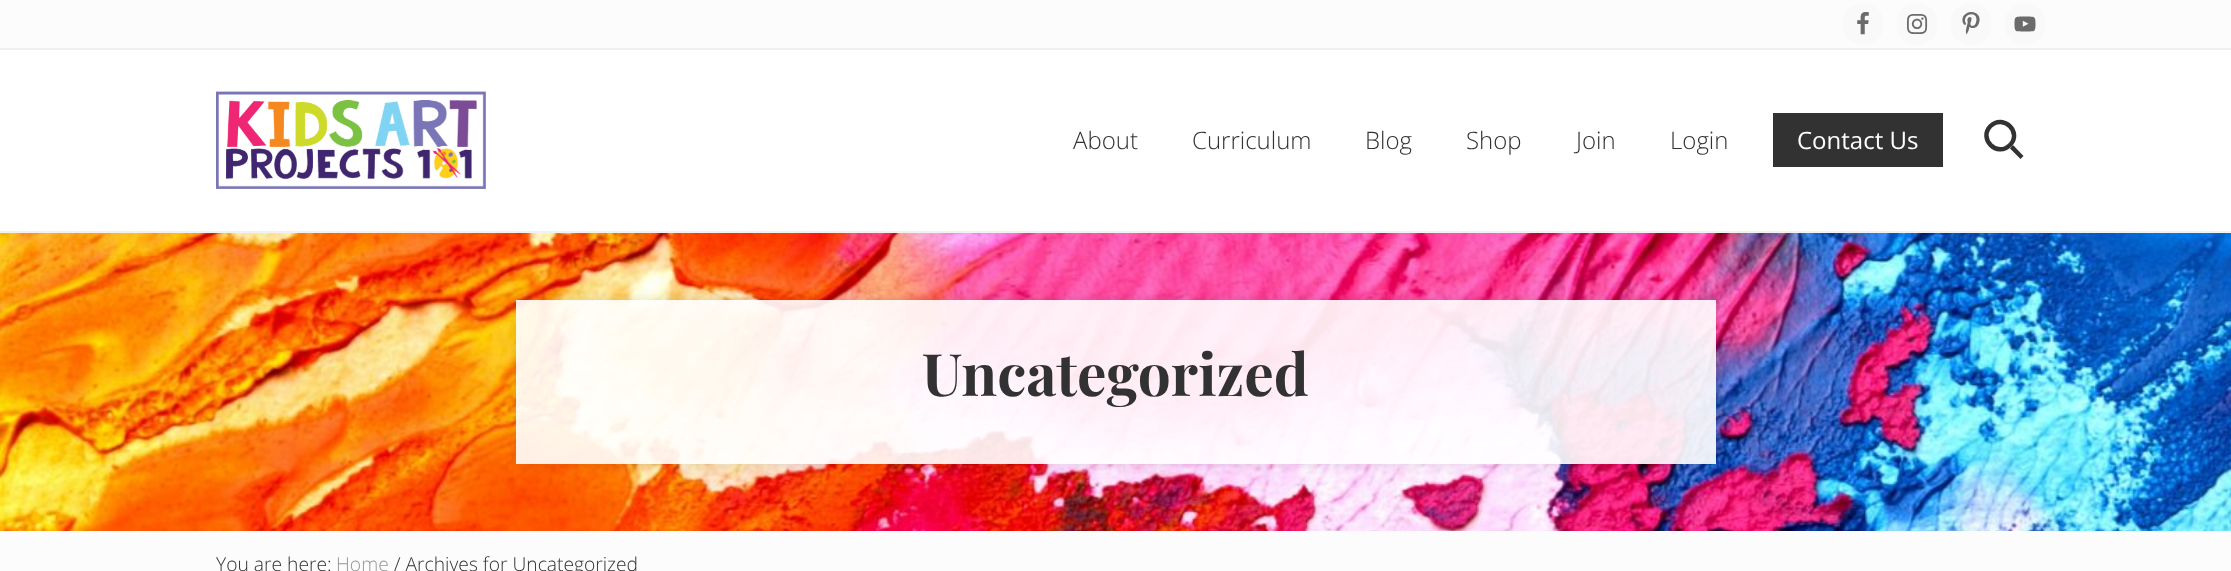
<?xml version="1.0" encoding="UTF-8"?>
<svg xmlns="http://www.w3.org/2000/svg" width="2231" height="571">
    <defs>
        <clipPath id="clip1"><path d="M 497 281 H 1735 V 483 H 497 Z M 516 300 H 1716 V 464 H 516 Z" clip-rule="evenodd"/></clipPath>
        <filter id="blur1" x="-50%" y="-200%" width="200%" height="500%"><feGaussianBlur stdDeviation="6"/></filter>
    </defs>
    <rect width="100%" height="100%" fill="#FCFCFC"/>
    <rect x="0" y="48" width="2231" height="2" fill="#EFEFEF"/>
    <circle cx="1863" cy="24" r="21" fill="#F9F9F9"/>
    <image x="1857" y="12" width="12" height="23" href="img_01.png"/>
    <circle cx="1917" cy="24" r="21" fill="#F9F9F9"/>
    <image x="1907" y="14" width="21" height="20" href="img_02.png"/>
    <circle cx="1971" cy="24" r="21" fill="#F9F9F9"/>
    <image x="1962" y="12" width="18" height="23" href="img_03.png"/>
    <circle cx="2025" cy="24" r="21" fill="#F9F9F9"/>
    <image x="2014" y="16" width="22" height="16" href="img_04.png"/>
    <rect x="0" y="50" width="2231" height="181" fill="#FFFFFF"/>
    <rect x="0" y="231" width="2231" height="2" fill="#F2F2F2"/>
    <image x="216" y="91" width="270" height="98" href="img_05.png"/>
    <text x="1073" y="149" font-family="Open Sans" font-size="24" font-weight="300" fill="#323232">About</text>
    <text x="1192" y="149" font-family="Open Sans" font-size="24" font-weight="300" fill="#323232">Curriculum</text>
    <text x="1365" y="149" font-family="Open Sans" font-size="24" font-weight="300" fill="#323232">Blog</text>
    <text x="1466" y="149" font-family="Open Sans" font-size="24" font-weight="300" fill="#323232">Shop</text>
    <text x="1576" y="149" font-family="Open Sans" font-size="24" font-weight="300" fill="#323232">Join</text>
    <text x="1670" y="149" font-family="Open Sans" font-size="24" font-weight="300" fill="#323232">Login</text>
    <rect x="1773" y="113" width="170" height="54" fill="#323232"/>
    <text x="1797" y="149" font-family="Open Sans" font-size="24" fill="#FFFFFF">Contact Us</text>
    <path d="M 1990.5 126 C 2003.5 113.5 2022.5 132.5 2010 145 C 1997 158 1978 138.5 1990.5 126 Z" fill="none" stroke="#323232" stroke-width="4.5"/>
    <path d="M 2010 148.5 L 2013 145 L 2023.5 156 L 2020.5 159 Z" fill="#323232"/>
    <image x="0" y="233" width="2231" height="298" href="img_06.png"/>
    <g clip-path="url(#clip1)">
        <rect x="516" y="300" width="1200" height="164" fill="#000000" fill-opacity="0.1" filter="url(#blur1)"/>
    </g>
    <rect x="516" y="300" width="1200" height="164" fill="#FFFFFF" fill-opacity="0.9"/>
    <text x="922" y="396" font-family="Playfair Display" font-size="58.5" font-weight="700" fill="#323232">Uncategorized</text>
    <text x="216" y="571" font-family="Open Sans" font-size="19.25" font-weight="300" fill="#323232">You are here:</text>
    <text x="336" y="571" font-family="Open Sans" font-size="19.25" font-weight="300" fill="#979797">Home</text>
    <text x="394" y="571" font-family="Open Sans" font-size="19.25" font-weight="300" fill="#323232">/ Archives for Uncategorized</text>
</svg>
